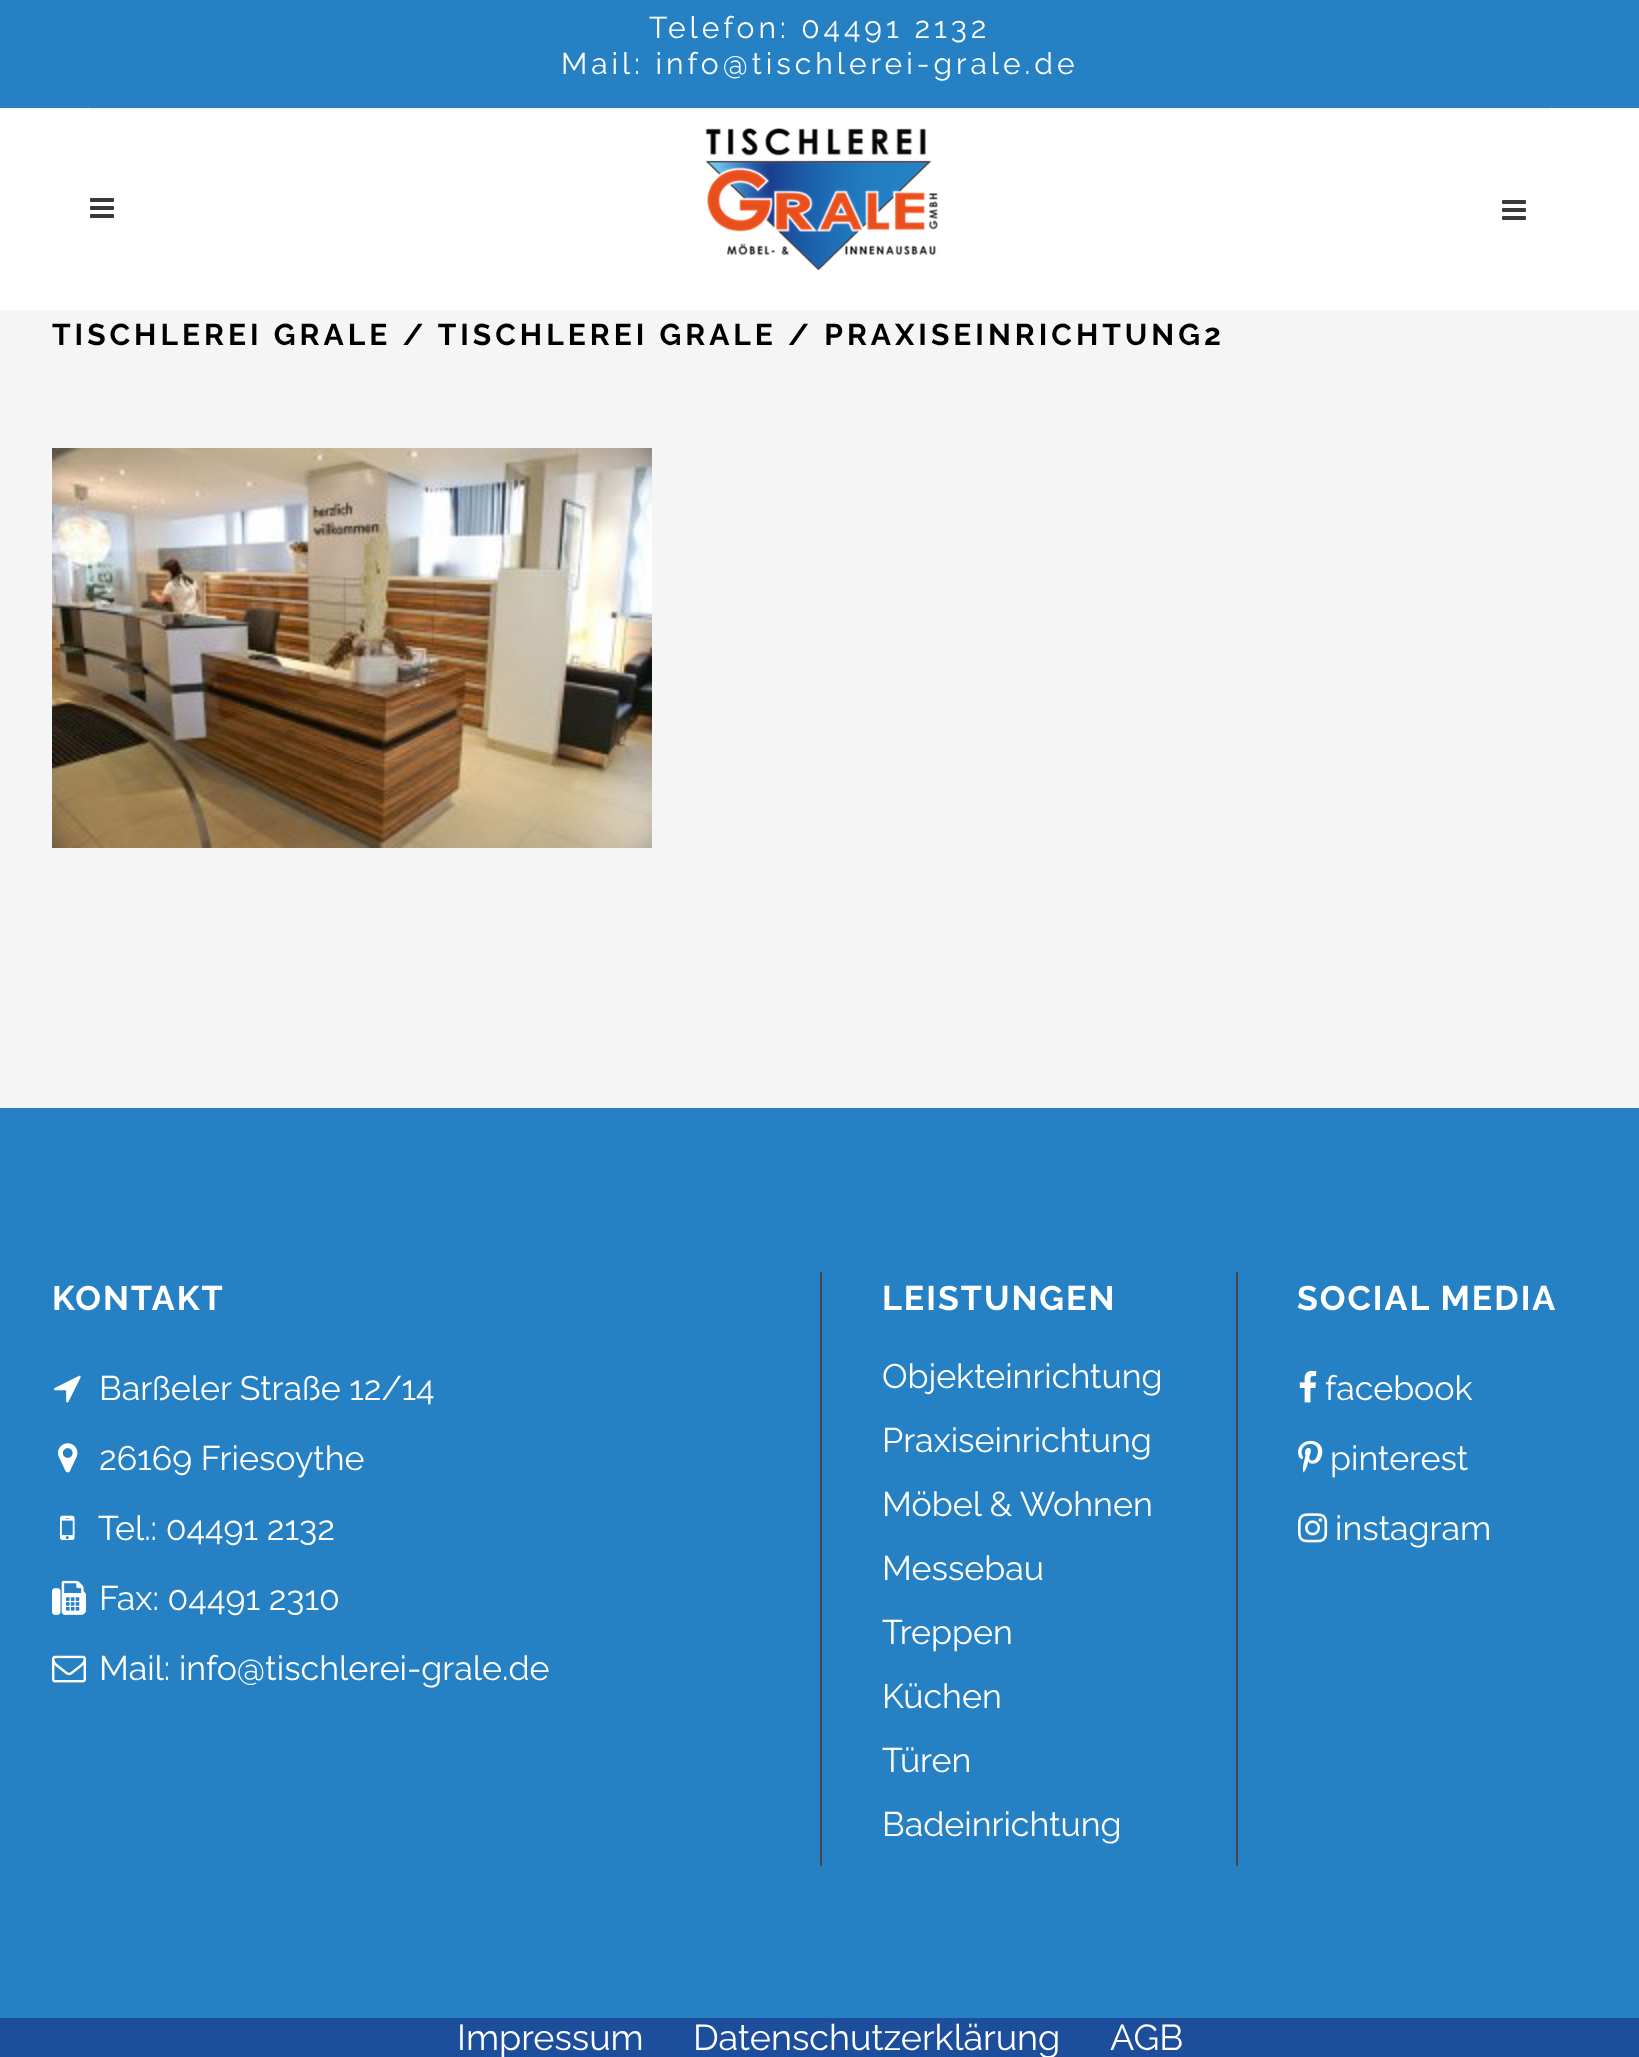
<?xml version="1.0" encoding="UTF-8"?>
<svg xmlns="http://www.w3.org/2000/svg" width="1639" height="2057">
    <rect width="100%" height="100%" fill="#F5F5F5"/>
    <rect x="0" y="0" width="1639" height="108" fill="#2581C4"/>
    <text x="649" y="38" font-family="Raleway" font-size="30" letter-spacing="4" fill="#FFFFFF">Telefon: 04491 2132</text>
    <text x="561" y="74" font-family="Raleway" font-size="30" letter-spacing="4" fill="#FFFFFF">Mail: info@tischlerei-grale.de</text>
    <rect x="0" y="108" width="1639" height="202" fill="#FFFFFF"/>
    <rect x="90" y="108" width="1460" height="2" fill="#F5F5F5"/>
    <image x="90" y="198" width="24" height="20" href="img_01.png"/>
    <image x="705" y="128" width="233" height="143" href="img_02.png"/>
    <image x="1502" y="200" width="24" height="20" href="img_01.png"/>
    <text x="52" y="345" font-family="Raleway" font-size="30" font-weight="700" letter-spacing="4" fill="#000000">TISCHLEREI GRALE / TISCHLEREI GRALE / PRAXISEINRICHTUNG2</text>
    <image x="52" y="448" width="600" height="400" href="img_03.png"/>
    <rect x="0" y="1108" width="1639" height="910" fill="#2581C4"/>
    <text x="52" y="1310" font-family="Raleway" font-size="34" font-weight="700" letter-spacing="2" fill="#FFFFFF">KONTAKT</text>
    <image x="54" y="1375" width="27" height="28" href="img_04.png"/>
    <text x="99" y="1400" font-family="Raleway" font-size="34" fill="#FFFFFF">Barßeler Straße 12/14</text>
    <image x="58" y="1443" width="20" height="30" href="img_05.png"/>
    <text x="99" y="1470" font-family="Raleway" font-size="34" fill="#FFFFFF">26169 Friesoythe</text>
    <image x="60" y="1515" width="15" height="25" href="img_06.png"/>
    <text x="98" y="1540" font-family="Raleway" font-size="34" fill="#FFFFFF">Tel.: 04491 2132</text>
    <image x="52" y="1580" width="34" height="35" href="img_07.png"/>
    <text x="99" y="1610" font-family="Raleway" font-size="34" fill="#FFFFFF">Fax: 04491 2310</text>
    <image x="52" y="1655" width="34" height="28" href="img_08.png"/>
    <text x="99" y="1680" font-family="Raleway" font-size="34" fill="#FFFFFF">Mail: info@tischlerei-grale.de</text>
    <rect x="820" y="1272" width="2" height="594" fill="#444444"/>
    <text x="882" y="1310" font-family="Raleway" font-size="34" font-weight="700" letter-spacing="2" fill="#FFFFFF">LEISTUNGEN</text>
    <text font-family="Raleway" font-size="34" fill="#FFFFFF">
        <tspan x="882" y="1388">Objekteinrichtung</tspan>
        <tspan x="882" y="1452">Praxiseinrichtung</tspan>
        <tspan x="882" y="1516">Möbel &amp; Wohnen</tspan>
        <tspan x="882" y="1580">Messebau</tspan>
        <tspan x="882" y="1644">Treppen</tspan>
        <tspan x="882" y="1708">Küchen</tspan>
        <tspan x="882" y="1772">Türen</tspan>
        <tspan x="882" y="1836">Badeinrichtung</tspan>
    </text>
    <rect x="1236" y="1272" width="2" height="594" fill="#444444"/>
    <text x="1297" y="1310" font-family="Raleway" font-size="34" font-weight="700" letter-spacing="2" fill="#FFFFFF">SOCIAL MEDIA</text>
    <image x="1299" y="1370" width="18" height="33" href="img_09.png"/>
    <text x="1325" y="1400" font-family="Raleway" font-size="34" fill="#FFFFFF">facebook</text>
    <image x="1298" y="1440" width="25" height="33" href="img_10.png"/>
    <text x="1330" y="1470" font-family="Raleway" font-size="34" fill="#FFFFFF">pinterest</text>
    <image x="1298" y="1513" width="30" height="30" href="img_11.png"/>
    <text x="1335" y="1540" font-family="Raleway" font-size="34" fill="#FFFFFF">instagram</text>
    <rect x="0" y="2018" width="1639" height="39" fill="#1D4E9B"/>
    <text x="457" y="2050" font-family="Raleway" font-size="36" fill="#FFFFFF">Impressum</text>
    <text x="693" y="2050" font-family="Raleway" font-size="36" fill="#FFFFFF">Datenschutzerklärung</text>
    <text x="1110" y="2050" font-family="Raleway" font-size="36" fill="#FFFFFF">AGB</text>
</svg>
